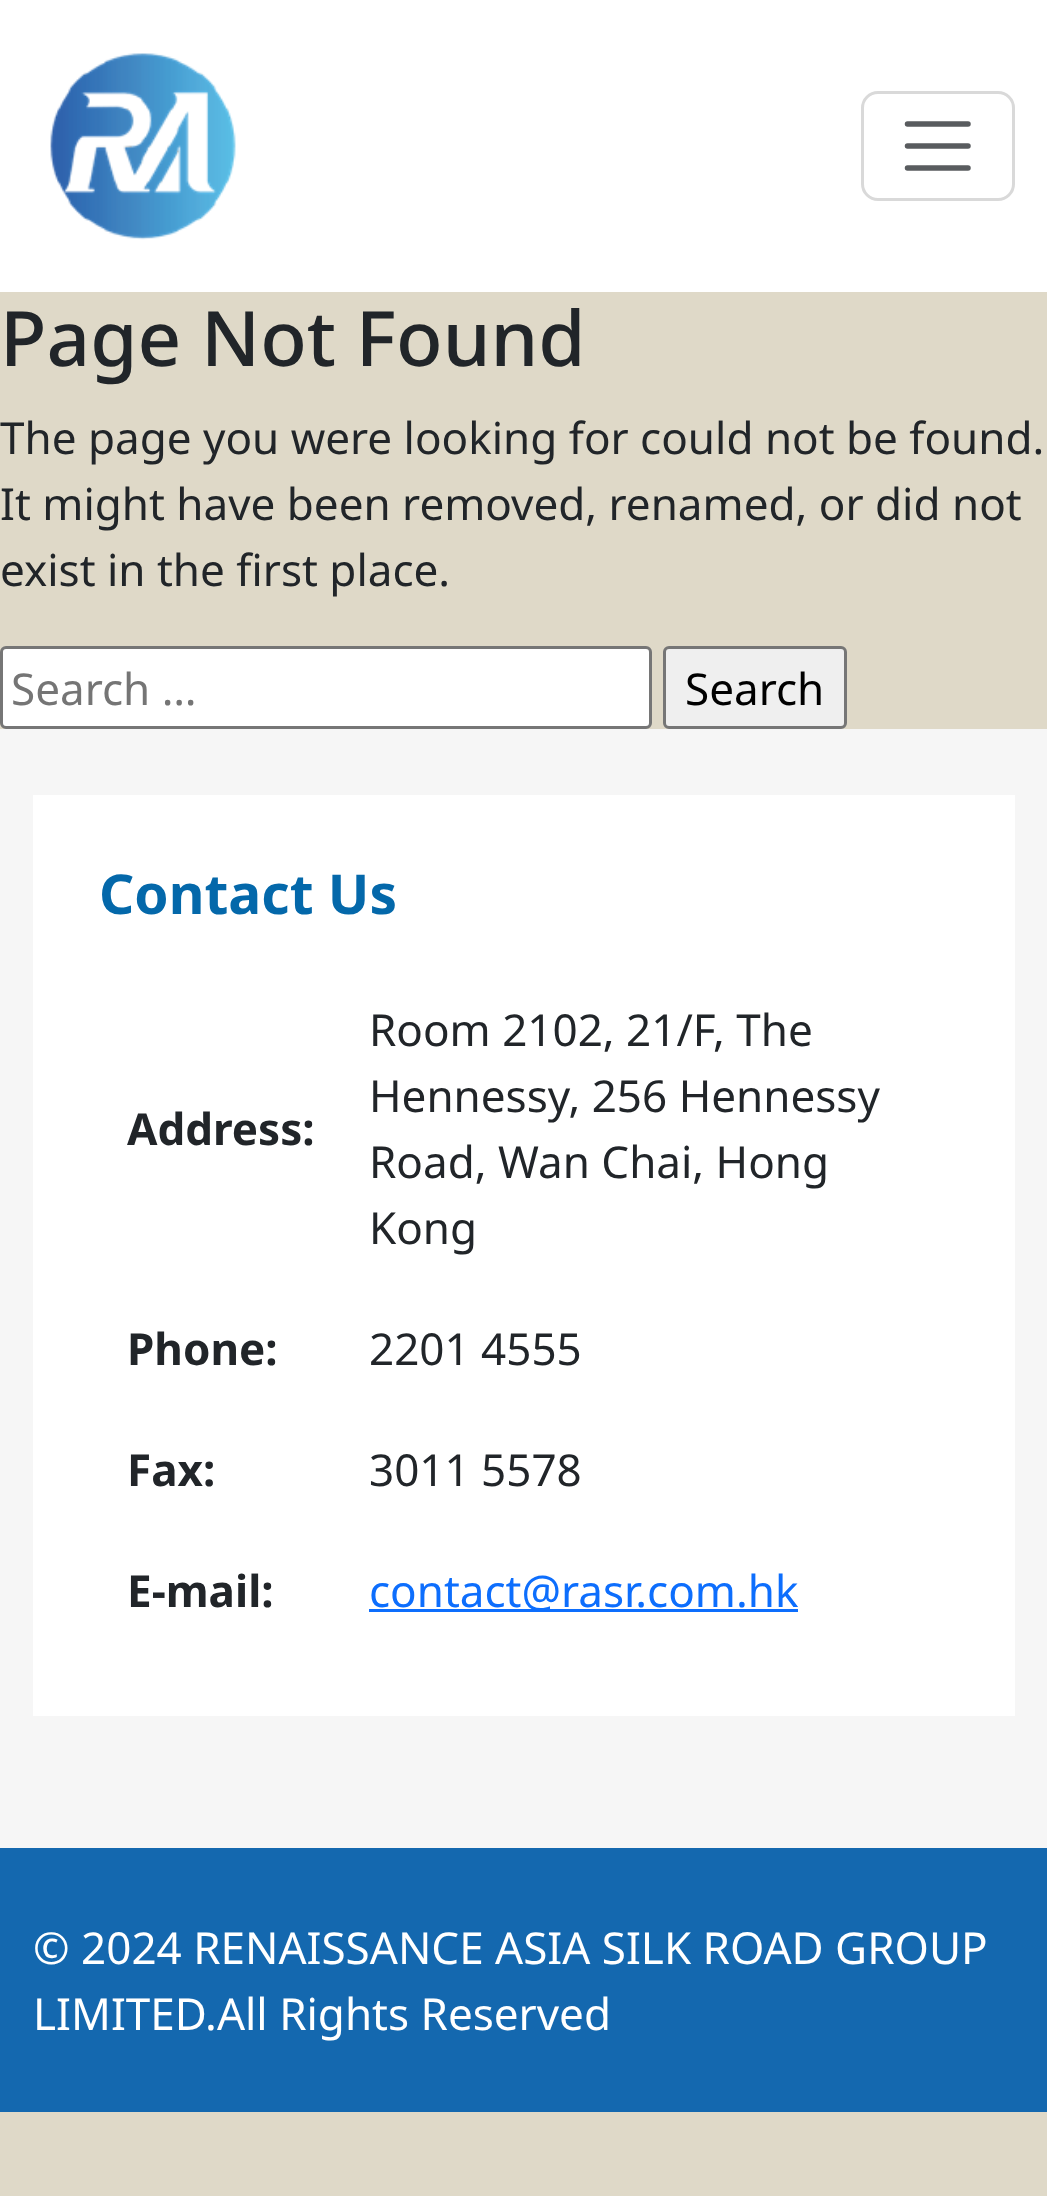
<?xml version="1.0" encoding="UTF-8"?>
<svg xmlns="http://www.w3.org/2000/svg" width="1047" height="2196">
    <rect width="100%" height="100%" fill="#DFD9C8"/>
    <rect x="0" y="0" width="1047" height="292" fill="#FFFFFF"/>
    <image x="50" y="53" width="186" height="187" href="img_01.png"/>
    <rect x="862.5" y="92.5" width="151" height="107" rx="15.5" fill="none" stroke="#D9D9D9" stroke-width="3"/>
    <path d="M 907.5 124 H 968 M 907.5 146 H 968 M 907.5 168 H 968" fill="none" stroke="#595C5F" stroke-width="5.5" stroke-linecap="round"/>
    <text x="0" y="366" font-family="Noto Sans" font-size="76.25" font-weight="500" fill="#212529">Page Not Found</text>
    <text font-family="Noto Sans" font-size="44" fill="#212529">
        <tspan x="0" y="454">The page you were looking for could not be found.</tspan>
        <tspan x="0" y="520">It might have been removed, renamed, or did not</tspan>
        <tspan x="0" y="586">exist in the first place.</tspan>
    </text>
    <rect x="1.5" y="647.5" width="649" height="80" rx="4.5" fill="#FFFFFF" stroke="#767676" stroke-width="3"/>
    <text x="11" y="705" font-family="Noto Sans" font-size="44" fill="#757575">Search …</text>
    <rect x="664.5" y="647.5" width="181" height="80" rx="4.5" fill="#EFEFEF" stroke="#767676" stroke-width="3"/>
    <text x="685" y="705" font-family="Noto Sans" font-size="44" fill="#000000">Search</text>
    <rect x="0" y="729" width="1047" height="1119" fill="#F6F6F6"/>
    <rect x="33" y="795" width="982" height="921" fill="#FFFFFF"/>
    <text x="99" y="914" font-family="Noto Sans" font-size="55" font-weight="700" fill="#0468AA">Contact Us</text>
    <text x="127" y="1145" font-family="Noto Sans" font-size="44" font-weight="700" fill="#212529">Address:</text>
    <text font-family="Noto Sans" font-size="44" fill="#212529">
        <tspan x="369" y="1046">Room 2102, 21/F, The</tspan>
        <tspan x="369" y="1112">Hennessy, 256 Hennessy</tspan>
        <tspan x="369" y="1178">Road, Wan Chai, Hong</tspan>
        <tspan x="369" y="1244">Kong</tspan>
    </text>
    <text x="127" y="1365" font-family="Noto Sans" font-size="44" font-weight="700" fill="#212529">Phone:</text>
    <text x="369" y="1365" font-family="Noto Sans" font-size="44" fill="#212529">2201 4555</text>
    <text x="127" y="1486" font-family="Noto Sans" font-size="44" font-weight="700" fill="#212529">Fax:</text>
    <text x="369" y="1486" font-family="Noto Sans" font-size="44" fill="#212529">3011 5578</text>
    <text x="127" y="1607" font-family="Noto Sans" font-size="44" font-weight="700" fill="#212529">E-mail:</text>
    <rect x="369" y="1609" width="429" height="3" fill="#0D6EFD"/>
    <text x="369" y="1607" font-family="Noto Sans" font-size="44" fill="#0D6EFD">contact@rasr.com.hk</text>
    <rect x="0" y="1848" width="1047" height="264" fill="#1468AF"/>
    <text font-family="Noto Sans" font-size="44" fill="#FFFFFF">
        <tspan x="33" y="1964">© 2024 RENAISSANCE ASIA SILK ROAD GROUP</tspan>
        <tspan x="33" y="2030">LIMITED.All Rights Reserved</tspan>
    </text>
</svg>
